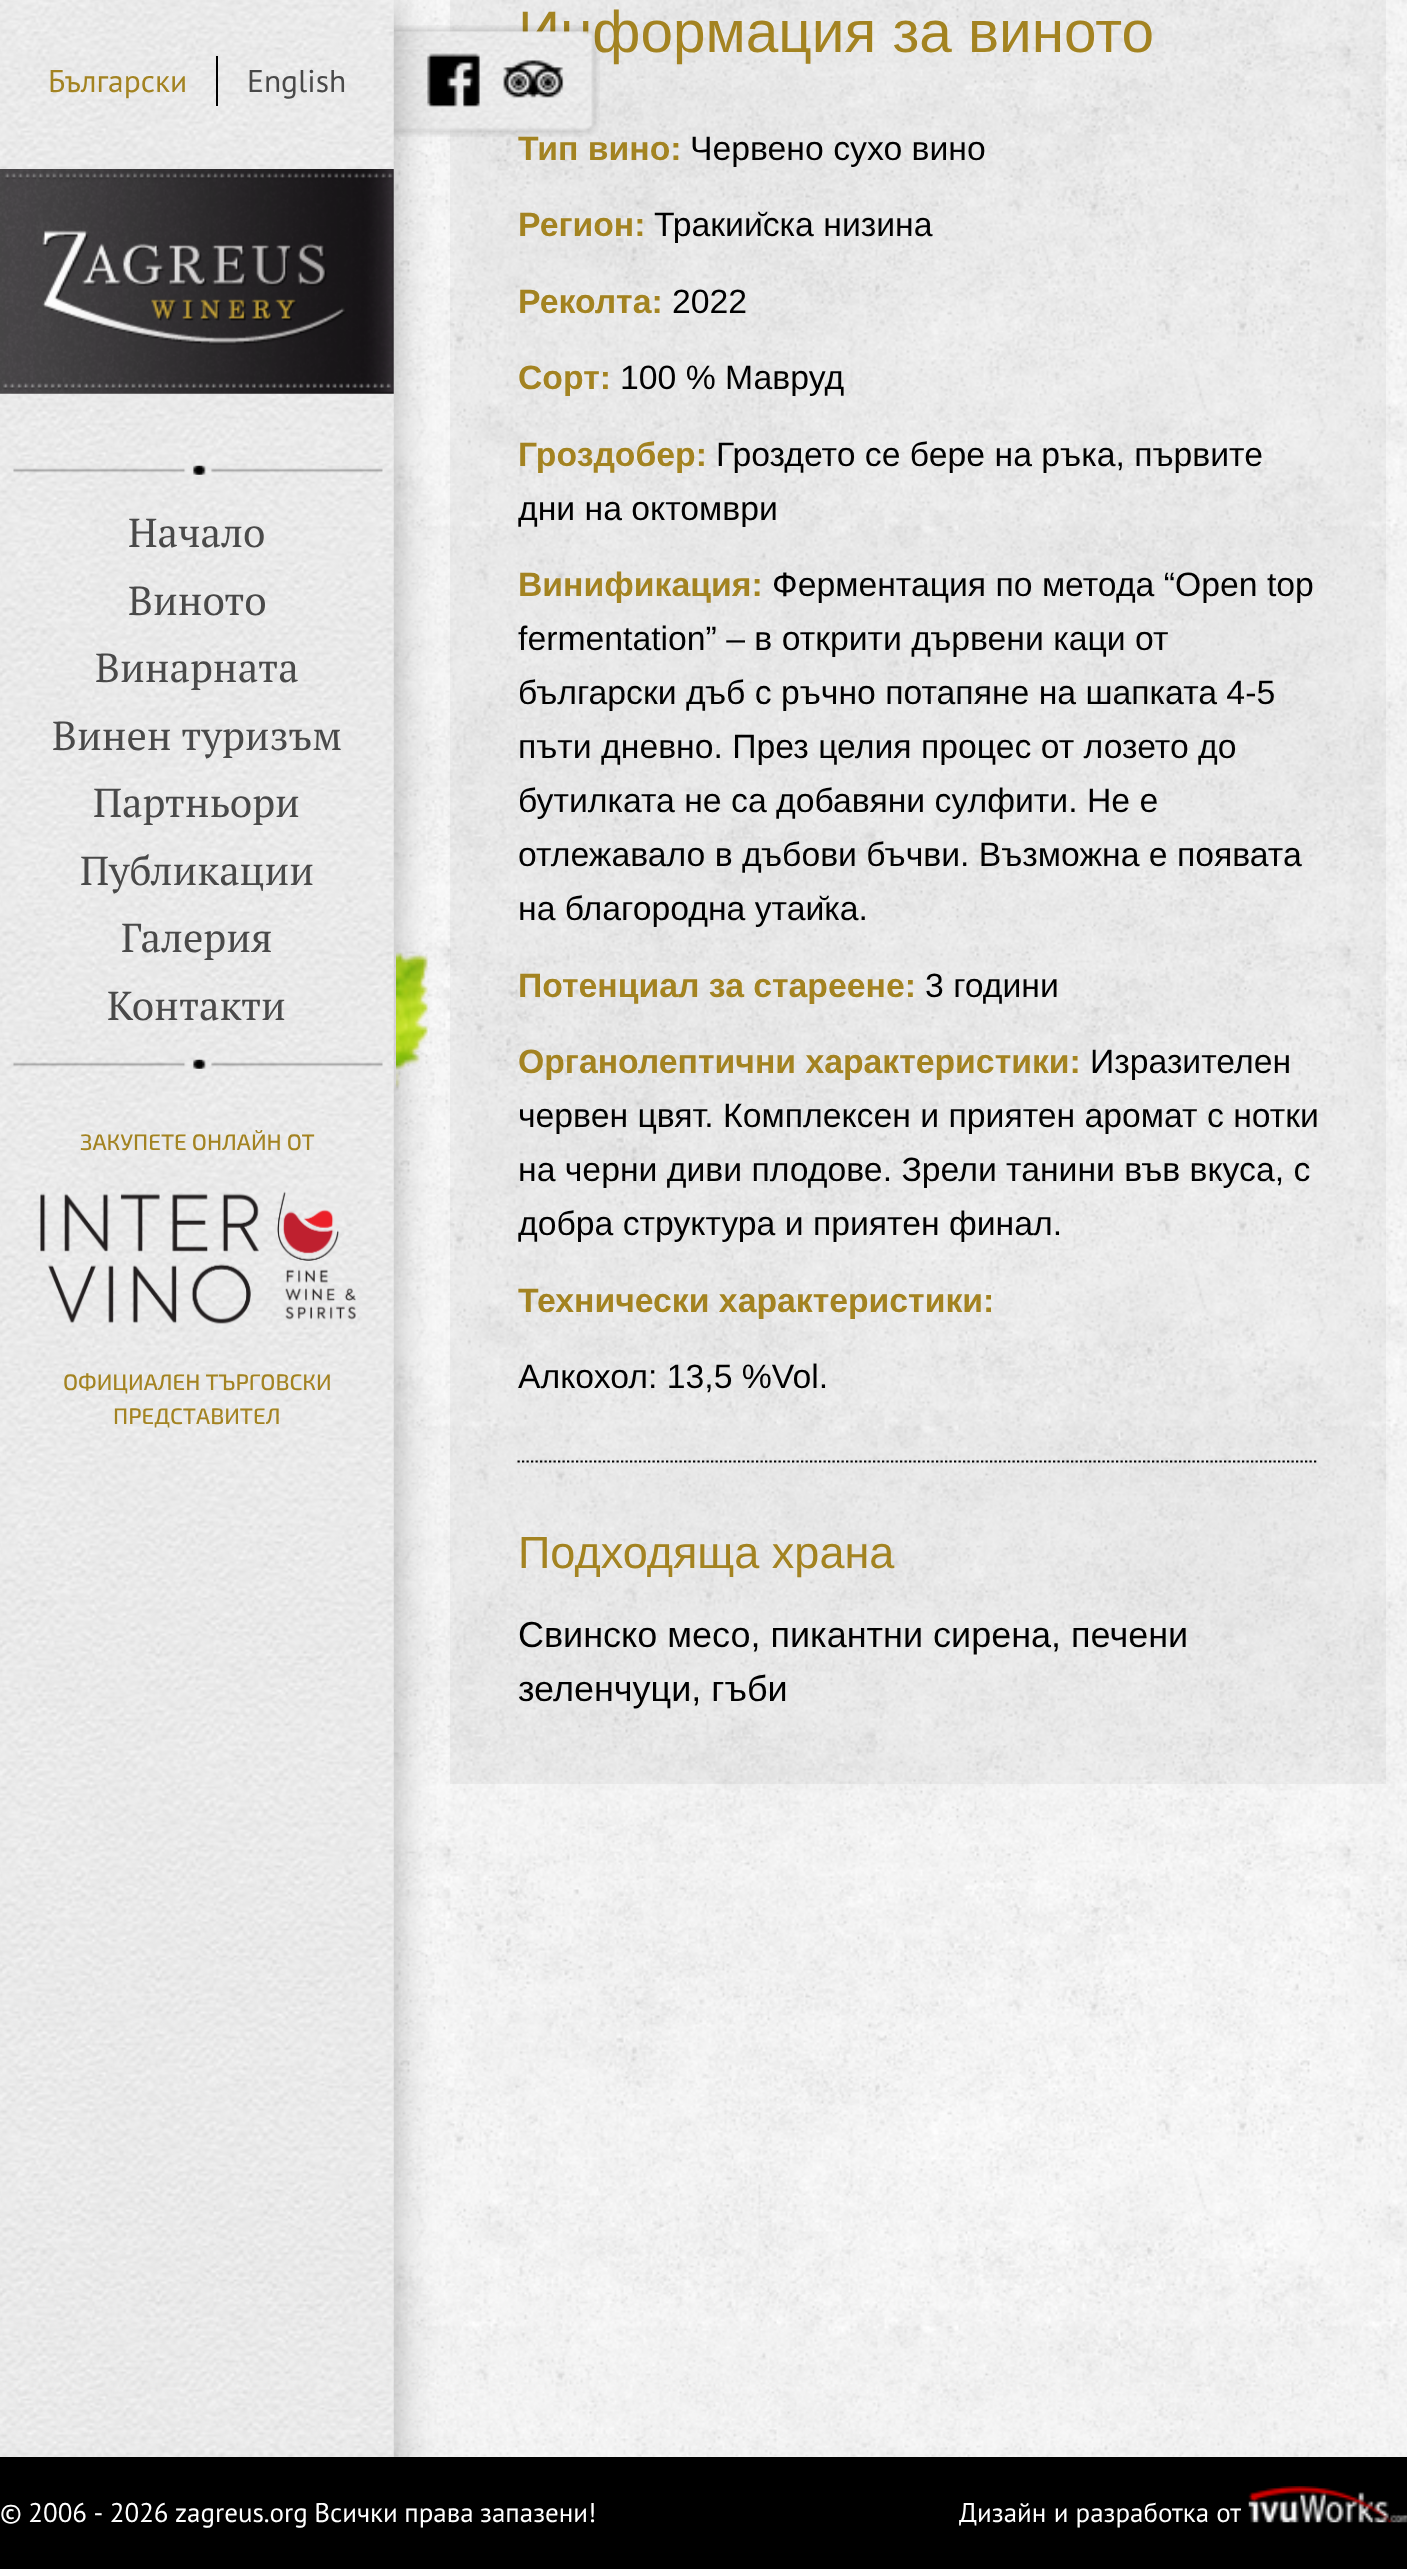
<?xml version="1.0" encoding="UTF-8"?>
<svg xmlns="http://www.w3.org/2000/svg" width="1407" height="2569">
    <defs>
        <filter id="blur1" x="-50%" y="-200%" width="200%" height="500%"><feGaussianBlur stdDeviation="20"/></filter>
    </defs>
    <rect width="100%" height="100%" fill="#FFFFFF"/>
    <image x="393" y="846" width="1014" height="1611" href="img_01.png"/>
    <image x="393" y="0" width="1014" height="846" href="img_02.png"/>
    <rect x="450" y="0" width="936" height="1784" fill="#000000" fill-opacity="0.04"/>
    <text x="518" y="52" font-family="Liberation Sans" font-size="58.5" fill="#A38321">Информация за виното</text>
    <text x="518" y="160" font-family="Liberation Sans" font-size="33.75" font-weight="700" fill="#A38321">Тип вино:</text>
    <image x="393" y="25" width="207" height="112" href="img_09.png"/>
    <image x="427" y="53" width="53" height="54" href="img_10.png"/>
    <rect x="0" y="0" width="394" height="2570" fill="#000000" fill-opacity="0.29" filter="url(#blur1)"/>
    <image x="0" y="0" width="394" height="2457" href="img_03.png"/>
    <text x="48" y="92" font-family="PT Sans" font-size="31.5" fill="#A38321">Български</text>
    <rect x="216" y="56" width="2" height="50" fill="#000000"/>
    <text x="247" y="92" font-family="PT Sans" font-size="31.5" fill="#494949">English</text>
    <image x="0" y="169" width="394" height="225" href="img_04.png"/>
    <image x="13" y="465" width="370" height="10" href="img_05.png"/>
    <text font-family="PT Serif" font-size="40.5" fill="#494949">
        <tspan x="128" y="547">Начало</tspan>
        <tspan x="128" y="615">Виното</tspan>
    </text>
    <text x="95" y="682" font-family="PT Serif" font-size="40.5" fill="#494949">Винарната</text>
    <text x="52" y="750" word-spacing="1" font-family="PT Serif" font-size="40.5" fill="#494949">Винен туризъм</text>
    <text x="93" y="817" font-family="PT Serif" font-size="40.5" fill="#494949">Партньори</text>
    <text x="80" y="885" font-family="PT Serif" font-size="40.5" fill="#494949">Публикации</text>
    <text x="121" y="952" font-family="PT Serif" font-size="40.5" fill="#494949">Галерия</text>
    <text x="107" y="1020" font-family="PT Serif" font-size="40.5" fill="#494949">Контакти</text>
    <image x="396" y="952" width="34" height="136" href="img_06.png"/>
    <image x="13" y="1059" width="370" height="10" href="img_07.png"/>
    <text x="80" y="1150" font-family="'Exo 2'" font-size="22.5" font-weight="500" fill="#A38321">ЗАКУПЕТЕ ОНЛАЙН ОТ</text>
    <image x="40" y="1191" width="316" height="133" href="img_08.png"/>
    <text x="63" y="1390" font-family="'Exo 2'" font-size="22.5" font-weight="500" fill="#A38321">ОФИЦИАЛЕН ТЪРГОВСКИ</text>
    <text x="113" y="1424" font-family="'Exo 2'" font-size="22.5" font-weight="500" fill="#A38321">ПРЕДСТАВИТЕЛ</text>
    <image x="503" y="60" width="61" height="38" href="img_11.png"/>
    <text x="690" y="160" font-family="Liberation Sans" font-size="33.75" fill="#000000">Червено сухо вино</text>
    <text x="518" y="236" font-family="Liberation Sans" font-size="33.75" font-weight="700" fill="#A38321">Регион:</text>
    <text x="654" y="236" font-family="Liberation Sans" font-size="33.75" fill="#000000">Тракийска низина</text>
    <text x="518" y="313" font-family="Liberation Sans" font-size="33.75" font-weight="700" fill="#A38321">Реколта:</text>
    <text x="672" y="313" font-family="Liberation Sans" font-size="33.75" fill="#000000">2022</text>
    <text x="518" y="389" font-family="Liberation Sans" font-size="33.75" font-weight="700" fill="#A38321">Сорт:</text>
    <text x="620" y="389" font-family="Liberation Sans" font-size="33.75" fill="#000000">100 % Мавруд</text>
    <text x="518" y="466" font-family="Liberation Sans" font-size="33.75" font-weight="700" fill="#A38321">Гроздобер:</text>
    <text x="716" y="466" font-family="Liberation Sans" font-size="33.75" fill="#000000">Гроздето се бере на ръка, първите</text>
    <text x="518" y="520" font-family="Liberation Sans" font-size="33.75" fill="#000000">дни на октомври</text>
    <text x="518" y="596" font-family="Liberation Sans" font-size="33.75" font-weight="700" fill="#A38321">Винификация:</text>
    <text x="772" y="596" font-family="Liberation Sans" font-size="33.75" fill="#000000">Ферментация по методa “Open top</text>
    <text font-family="Liberation Sans" font-size="33.75" fill="#000000">
        <tspan x="518" y="650">fermentation” – в открити дървени каци от</tspan>
        <tspan x="518" y="704">български дъб с ръчно потапяне на шапката 4-5</tspan>
        <tspan x="518" y="758">пъти дневно. През целия процес от лозето до</tspan>
        <tspan x="518" y="812">бутилката не са добавяни сулфити. Не е</tspan>
        <tspan x="518" y="866">отлежавало в дъбови бъчви. Възможна е появата</tspan>
        <tspan x="518" y="920">на благородна утайка.</tspan>
    </text>
    <text x="518" y="997" font-family="Liberation Sans" font-size="33.75" font-weight="700" fill="#A38321">Потенциал за стареене:</text>
    <text x="925" y="997" font-family="Liberation Sans" font-size="33.75" fill="#000000">3 години</text>
    <text x="518" y="1073" font-family="Liberation Sans" font-size="33.75" font-weight="700" fill="#A38321">Органолептични характеристики:</text>
    <text x="1090" y="1073" font-family="Liberation Sans" font-size="33.75" fill="#000000">Изразителен</text>
    <text font-family="Liberation Sans" font-size="33.75" fill="#000000">
        <tspan x="518" y="1127">червен цвят. Комплексен и приятен аромат с нотки</tspan>
        <tspan x="518" y="1181">на черни диви плодове. Зрели танини във вкуса, с</tspan>
        <tspan x="518" y="1235">добра структура и приятен финал.</tspan>
    </text>
    <text x="518" y="1312" font-family="Liberation Sans" font-size="33.75" font-weight="700" fill="#A38321">Технически характеристики:</text>
    <text x="518" y="1388" font-family="Liberation Sans" font-size="33.75" fill="#000000">Алкохол: 13,5 %Vol.</text>
    <path d="M 517.5 1461.5 H 1318.5" fill="none" stroke="#000000" stroke-width="2.2" stroke-dasharray="2.25 2.25"/>
    <text x="518" y="1568" font-family="Liberation Sans" font-size="45" fill="#A38321">Подходяща храна</text>
    <text font-family="Liberation Sans" font-size="36" fill="#000000">
        <tspan x="518" y="1647">Свинско месо, пикантни сирена, печени</tspan>
        <tspan x="518" y="1701">зеленчуци, гъби</tspan>
    </text>
    <rect x="0" y="2457" width="1407" height="112" fill="#000000"/>
    <text x="0" y="2522" word-spacing="-0.75" font-family="PT Sans" font-size="27" fill="#FFFFFF">© 2006 - 2026 zagreus.org Всички права запазени!</text>
    <text x="959" y="2522" font-family="PT Sans" font-size="27" fill="#FFFFFF">Дизайн и разработка от</text>
    <image x="1248" y="2486" width="159" height="37" href="img_12.png"/>
</svg>
